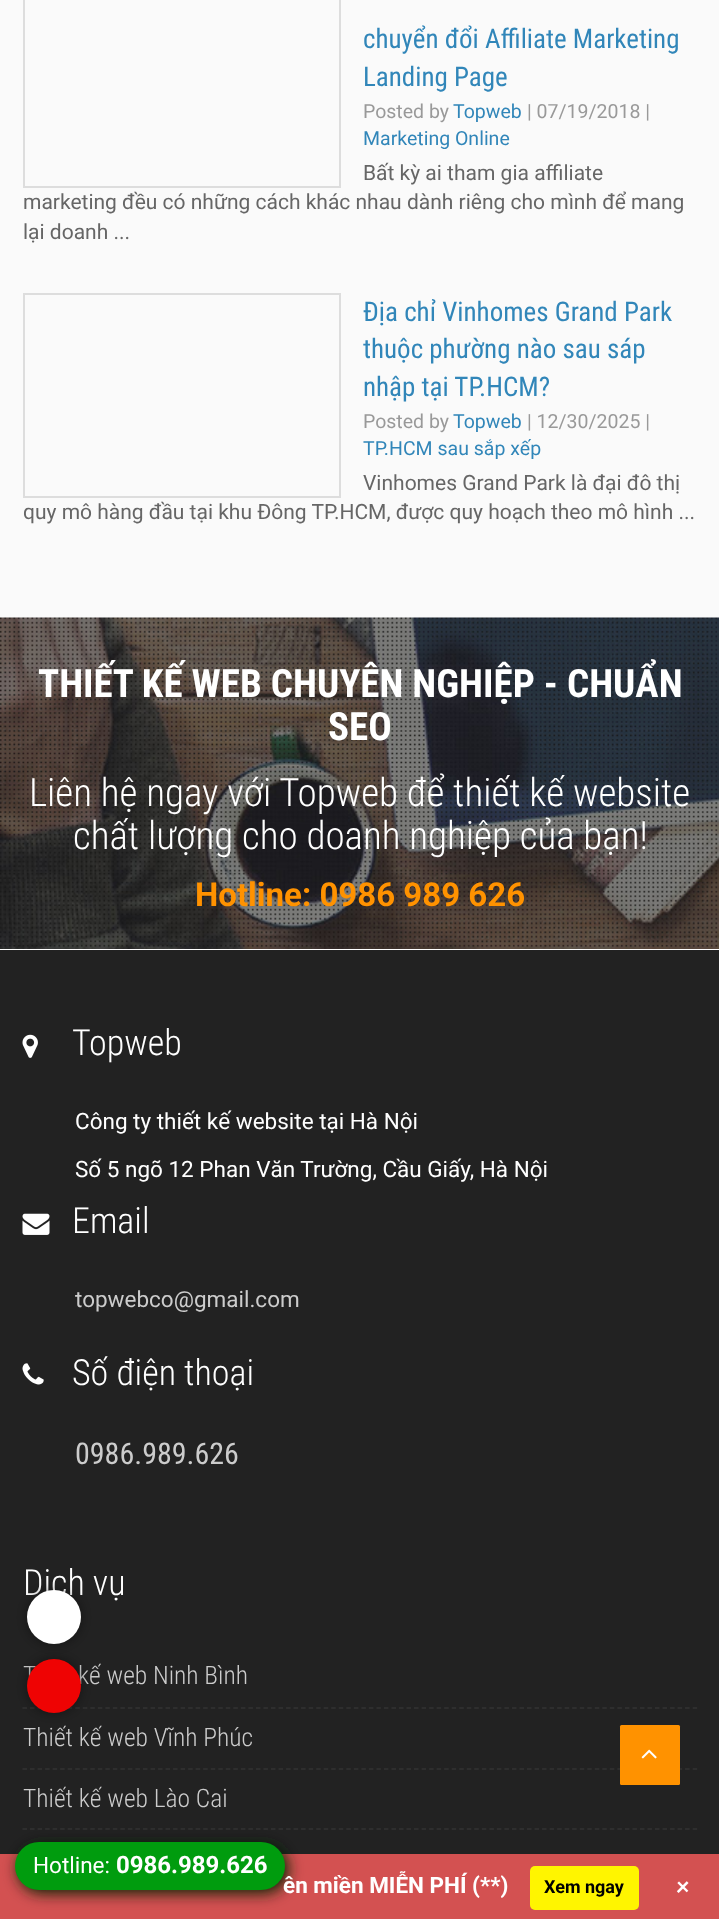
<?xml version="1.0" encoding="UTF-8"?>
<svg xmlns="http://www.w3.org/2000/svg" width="719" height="1919">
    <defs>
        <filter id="blur1" x="-50%" y="-200%" width="200%" height="500%"><feGaussianBlur stdDeviation="7.5"/></filter>
    </defs>
    <rect width="100%" height="100%" fill="#FFFFFF"/>
    <rect x="0" y="0" width="719" height="618" fill="#FAFAFA"/>
    <rect x="24" y="-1" width="316" height="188" fill="none" stroke="#DDDDDD" stroke-width="2"/>
    <text font-family="Roboto Condensed" font-size="27" fill="#3186B9">
        <tspan x="363" y="48">chuyển đổi Affiliate Marketing</tspan>
        <tspan x="363" y="86">Landing Page</tspan>
    </text>
    <text x="363" y="118" font-family="Roboto" font-size="19.5" fill="#999999">Posted by</text>
    <text x="453" y="118" font-family="Roboto" font-size="19.5" fill="#3186B9">Topweb</text>
    <text x="527" y="118" font-family="Roboto" font-size="19.5" fill="#999999">| 07/19/2018 |</text>
    <text x="363" y="145" font-family="Roboto" font-size="19.5" fill="#3186B9">Marketing Online</text>
    <text x="363" y="180" font-family="Roboto" font-size="21" fill="#666666">Bất kỳ ai tham gia affiliate</text>
    <text font-family="Roboto" font-size="21" fill="#666666">
        <tspan x="23" y="209">marketing đều có những cách khác nhau dành riêng cho mình để mang</tspan>
        <tspan x="23" y="239">lại doanh ...</tspan>
    </text>
    <rect x="24" y="294" width="316" height="203" fill="none" stroke="#DDDDDD" stroke-width="2"/>
    <text font-family="Roboto Condensed" font-size="27" fill="#3186B9">
        <tspan x="363" y="321">Địa chỉ Vinhomes Grand Park</tspan>
        <tspan x="363" y="358">thuộc phường nào sau sáp</tspan>
        <tspan x="363" y="396">nhập tại TP.HCM?</tspan>
    </text>
    <text x="363" y="428" font-family="Roboto" font-size="19.5" fill="#999999">Posted by</text>
    <text x="453" y="428" font-family="Roboto" font-size="19.5" fill="#3186B9">Topweb</text>
    <text x="527" y="428" font-family="Roboto" font-size="19.5" fill="#999999">| 12/30/2025 |</text>
    <text x="363" y="455" font-family="Roboto" font-size="19.5" fill="#3186B9">TP.HCM sau sắp xếp</text>
    <text x="363" y="490" font-family="Roboto" font-size="21" fill="#666666">Vinhomes Grand Park là đại đô thị</text>
    <text x="23" y="519" font-family="Roboto" font-size="21" fill="#666666">quy mô hàng đầu tại khu Đông TP.HCM, được quy hoạch theo mô hình ...</text>
    <image x="0" y="617" width="719" height="332" href="img_01.png"/>
    <text x="38" y="697" font-family="Roboto Condensed" font-size="39" font-weight="700" fill="#FFFFFF">THIẾT KẾ WEB CHUYÊN NGHIỆP - CHUẨN</text>
    <text x="328" y="740" font-family="Roboto Condensed" font-size="39" font-weight="700" fill="#FFFFFF">SEO</text>
    <text x="29" y="806" font-family="Roboto Condensed" font-size="39" font-weight="300" fill="#FFFFFF">Liên hệ ngay với Topweb để thiết kế website</text>
    <text x="73" y="849" font-family="Roboto Condensed" font-size="39" font-weight="300" fill="#FFFFFF">chất lượng cho doanh nghiệp của bạn!</text>
    <text x="195" y="906" font-family="Roboto" font-size="33" font-weight="700" fill="#FF9200">Hotline: 0986 989 626</text>
    <rect x="0" y="950" width="719" height="904" fill="#222222"/>
    <image x="22" y="1034" width="16" height="24" href="img_02.png"/>
    <text x="72" y="1055" font-family="Roboto Condensed" font-size="36" font-weight="300" fill="#FFFFFF">Topweb</text>
    <text x="75" y="1129" font-family="Roboto" font-size="22.5" fill="#FFFFFF">Công ty thiết kế website tại Hà Nội</text>
    <text x="75" y="1177" font-family="Roboto" font-size="22.5" fill="#FFFFFF">Số 5 ngõ 12 Phan Văn Trường, Cầu Giấy, Hà Nội</text>
    <image x="22" y="1213" width="28" height="22" href="img_03.png"/>
    <text x="72" y="1233" font-family="Roboto Condensed" font-size="36" font-weight="300" fill="#FFFFFF">Email</text>
    <text x="75" y="1307" font-family="Roboto" font-size="22.5" fill="#CCCCCC">topwebco@gmail.com</text>
    <image x="22" y="1363" width="22" height="22" href="img_04.png"/>
    <text x="72" y="1385" font-family="Roboto Condensed" font-size="36" font-weight="300" fill="#FFFFFF">Số điện thoại</text>
    <text x="75" y="1464" font-family="Roboto Condensed" font-size="30" fill="#CCCCCC">0986.989.626</text>
    <text x="23" y="1595" font-family="Roboto Condensed" font-size="36" font-weight="300" fill="#FFFFFF">Dịch vụ</text>
    <path d="M 22.5 1708 H 697.5" fill="none" stroke="#333333" stroke-width="1.5" stroke-dasharray="4.5 3.03"/>
    <text x="23" y="1684" font-family="Roboto Condensed" font-size="25.5" font-weight="300" fill="#CCCCCC">T</text>
    <text x="78" y="1684" font-family="Roboto Condensed" font-size="25.5" font-weight="300" fill="#CCCCCC">kế web Ninh Bình</text>
    <path d="M 22.5 1769 H 697.5" fill="none" stroke="#333333" stroke-width="1.5" stroke-dasharray="4.5 3.03"/>
    <text x="23" y="1746" font-family="Roboto Condensed" font-size="25.5" font-weight="300" fill="#CCCCCC">Thiết kế web Vĩnh Phúc</text>
    <path d="M 22.5 1829 H 697.5" fill="none" stroke="#333333" stroke-width="1.5" stroke-dasharray="4.5 3.03"/>
    <text x="23" y="1807" font-family="Roboto Condensed" font-size="25.5" font-weight="300" fill="#CCCCCC">Thiết kế web Lào Cai</text>
    <rect x="620" y="1725" width="60" height="60" rx="1.5" fill="#FF9200"/>
    <image x="641" y="1749" width="16" height="10" href="img_05.png"/>
    <rect x="30" y="1593" width="48" height="48" rx="24" fill="#000000" fill-opacity="0.7" filter="url(#blur1)"/>
    <circle cx="54" cy="1617" r="27" fill="#FFFFFF"/>
    <rect x="30" y="1662" width="48" height="48" rx="24" fill="#000000" fill-opacity="0.7" filter="url(#blur1)"/>
    <circle cx="54" cy="1686" r="27" fill="#EF0303"/>
    <rect x="0" y="1854" width="719" height="65" fill="#D35151"/>
    <rect x="18" y="1845" width="270" height="48" rx="24" fill="#002303" filter="url(#blur1)"/>
    <text x="283" y="1893" font-family="Roboto" font-size="22.5" font-weight="700" fill="#FFFFFF">ên miền MIỄN PHÍ (**)</text>
    <rect x="15" y="1842" width="270" height="48" rx="24" fill="#009C0E"/>
    <text x="33" y="1873" font-family="Roboto" font-size="22.5" fill="#FFFFFF">Hotline:</text>
    <text x="116" y="1873" font-family="Roboto" font-size="24" font-weight="700" fill="#FFFFFF">0986.989.626</text>
    <rect x="530" y="1866" width="109" height="44" rx="5" fill="#FFF500"/>
    <text x="544" y="1893" font-family="Roboto" font-size="18" font-weight="700" fill="#000000">Xem ngay</text>
    <text x="671" y="1888" transform="rotate(45 671 1888)" font-family="Roboto" font-size="27" fill="#FFFFFF">+</text>
</svg>
